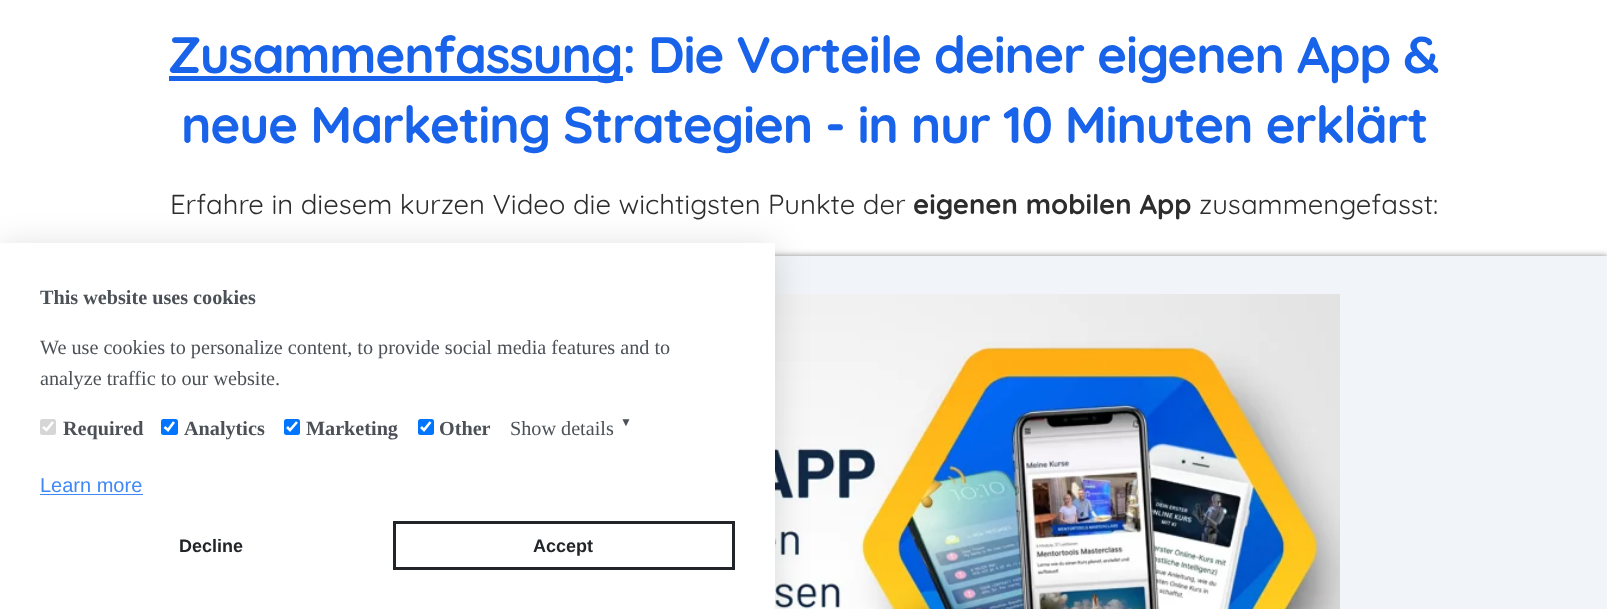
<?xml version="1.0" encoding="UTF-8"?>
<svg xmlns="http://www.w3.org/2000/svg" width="1607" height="609">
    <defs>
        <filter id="blur1" x="-50%" y="-200%" width="200%" height="500%"><feGaussianBlur stdDeviation="3"/></filter>
        <filter id="blur2" x="-50%" y="-200%" width="200%" height="500%"><feGaussianBlur stdDeviation="17"/></filter>
    </defs>
    <rect width="100%" height="100%" fill="#FFFFFF"/>
    <rect x="169" y="76" width="454" height="5" fill="#1863EA"/>
    <text x="168" y="73" font-family="Quicksand" font-size="51.25" font-weight="700" letter-spacing="-1.25" fill="#1863EA">Zusammenfassung: Die Vorteile deiner eigenen App &amp;</text>
    <text x="181" y="143" font-family="Quicksand" font-size="51.25" font-weight="700" letter-spacing="-1.25" fill="#1863EA">neue Marketing Strategien - in nur 10 Minuten erklärt</text>
    <text x="170" y="214" font-family="Quicksand" font-size="27.5" fill="#2D2D2D">Erfahre in diesem kurzen Video die wichtigsten Punkte der</text>
    <text x="913" y="214" font-family="Quicksand" font-size="27.5" font-weight="700" fill="#2D2D2D">eigenen mobilen App</text>
    <text x="1199" y="214" font-family="Quicksand" font-size="27.5" fill="#2D2D2D">zusammengefasst:</text>
    <rect x="0" y="256" width="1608" height="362" fill="#8E8787" filter="url(#blur1)"/>
    <rect x="775" y="256" width="832" height="353" fill="#F1F4F8"/>
    <image x="775" y="294" width="565" height="315" href="img_01.png"/>
    <rect x="0" y="248" width="775" height="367" fill="#000000" fill-opacity="0.15" filter="url(#blur2)"/>
    <rect x="0" y="243" width="775" height="366" fill="#FFFFFF"/>
    <text x="40" y="304" font-family="Liberation Serif" font-size="20.2" font-weight="700" fill="#4B5157">This website uses cookies</text>
    <text font-family="Liberation Serif" font-size="20.2" fill="#4B5157">
        <tspan x="40" y="354">We use cookies to personalize content, to provide social media features and to</tspan>
        <tspan x="40" y="385">analyze traffic to our website.</tspan>
    </text>
    <rect x="40" y="419" width="16" height="16" rx="2.5" fill="#D6D6D6"/>
    <path d="M 43 427 L 46.5 430 L 53 422" fill="none" stroke="#FFFFFF" stroke-width="2.6"/>
    <text x="63" y="435" font-family="Liberation Serif" font-size="20.2" font-weight="700" fill="#4B5157">Required</text>
    <rect x="161" y="419" width="17" height="16" rx="2.5" fill="#0075FF"/>
    <path d="M 164.5 427 L 168 430 L 174 422" fill="none" stroke="#FFFFFF" stroke-width="2.6"/>
    <text x="184" y="435" font-family="Liberation Serif" font-size="20.2" font-weight="700" fill="#4B5157">Analytics</text>
    <rect x="284" y="419" width="16" height="16" rx="2.5" fill="#0075FF"/>
    <path d="M 287 427 L 290 430 L 297 422" fill="none" stroke="#FFFFFF" stroke-width="2.6"/>
    <text x="306" y="435" font-family="Liberation Serif" font-size="20.2" font-weight="700" fill="#4B5157">Marketing</text>
    <rect x="418" y="419" width="16" height="16" rx="2.5" fill="#0075FF"/>
    <path d="M 421 427 L 424 430 L 430.5 422" fill="none" stroke="#FFFFFF" stroke-width="2.6"/>
    <text x="439" y="435" font-family="Liberation Serif" font-size="20.2" font-weight="700" fill="#4B5157">Other</text>
    <text x="510" y="435" font-family="Liberation Serif" font-size="20.2" fill="#4B5157">Show details</text>
    <text x="620" y="426" font-family="Liberation Serif" font-size="12" fill="#4B5157">▼</text>
    <text x="40" y="492" font-family="Liberation Sans" font-size="20" fill="#3F88F5">Learn more</text>
    <rect x="40" y="494" width="103" height="1" fill="#3F88F5"/>
    <text x="179" y="552" font-family="Liberation Sans" font-size="18" font-weight="700" fill="#212529">Decline</text>
    <rect x="394.5" y="522.5" width="339" height="46" fill="none" stroke="#212529" stroke-width="3"/>
    <text x="533" y="552" font-family="Liberation Sans" font-size="18" font-weight="700" fill="#212529">Accept</text>
</svg>
